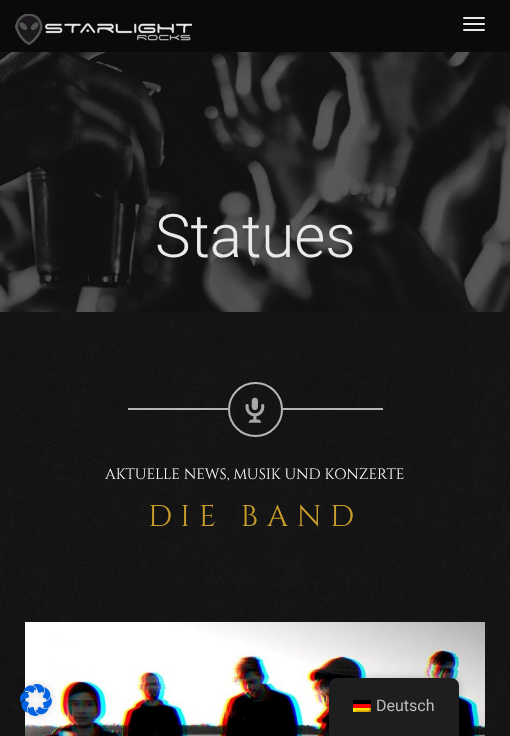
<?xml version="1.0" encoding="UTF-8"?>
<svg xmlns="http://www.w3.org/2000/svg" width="510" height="736">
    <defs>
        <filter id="blur1" x="-50%" y="-200%" width="200%" height="500%"><feGaussianBlur stdDeviation="4"/></filter>
    </defs>
    <rect width="100%" height="100%" fill="#0A0A0A"/>
    <image x="15" y="14" width="177" height="31" href="img_01.png"/>
    <rect x="463" y="17" width="22" height="2" rx="1" fill="#EAEAEA"/>
    <rect x="463" y="23" width="22" height="2" rx="1" fill="#EAEAEA"/>
    <rect x="463" y="29" width="22" height="2" rx="1" fill="#EAEAEA"/>
    <image x="0" y="52" width="510" height="260" href="img_02.png"/>
    <text x="155" y="257" font-family="Roboto" font-size="60" font-weight="300" fill="#EAEAEA">Statues</text>
    <image x="0" y="312" width="510" height="424" href="img_03.png"/>
    <rect x="128" y="408" width="100" height="2" fill="#DEDEDE" fill-opacity="0.8"/>
    <circle cx="255.5" cy="409.5" r="26.5" fill="none" stroke="#DEDEDE" stroke-opacity="0.8" stroke-width="2"/>
    <image x="245" y="397" width="20" height="26" href="img_04.png"/>
    <rect x="283" y="408" width="100" height="2" fill="#DEDEDE" fill-opacity="0.8"/>
    <text x="105" y="479" font-family="Cinzel" font-size="15" fill="#FFFFFF">AKTUELLE NEWS, MUSIK UND KONZERTE</text>
    <text x="148" y="526" font-family="Cinzel" font-size="30" letter-spacing="8.5" fill="#C99D29">DIE BAND</text>
    <image x="25" y="622" width="460" height="114" href="img_05.png"/>
    <image x="20" y="680" width="36" height="40" href="img_06.png"/>
    <rect x="329" y="678" width="130" height="58" rx="8" fill="#000000" fill-opacity="0.25" filter="url(#blur1)"/>
    <path d="M 337 678 H 451 C 455.5 678 459 681.5 459 686 V 736 H 329 V 686 C 329 681.5 332.5 678 337 678 Z" fill="#1E1E1E"/>
    <image x="353" y="700" width="18" height="12" href="img_07.png"/>
    <text x="376" y="711" font-family="Roboto" font-size="16" fill="#BDBDBD">Deutsch</text>
</svg>
